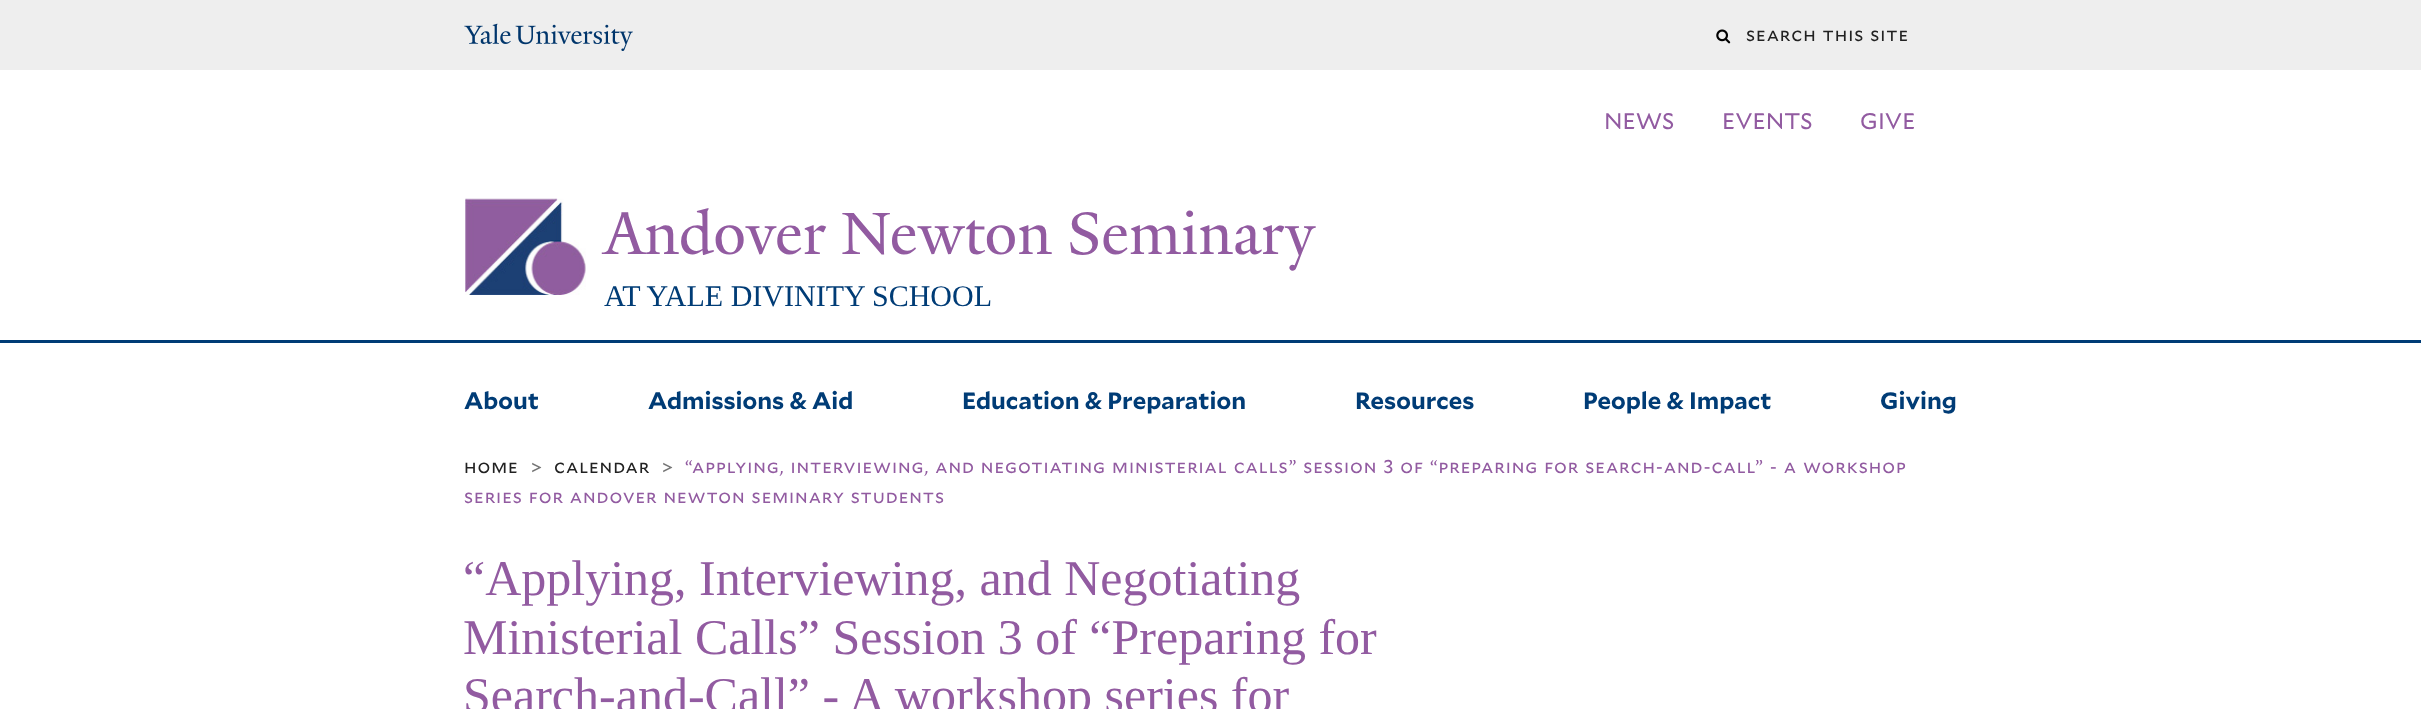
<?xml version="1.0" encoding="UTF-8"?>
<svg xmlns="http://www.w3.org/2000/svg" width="2421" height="709">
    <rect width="100%" height="100%" fill="#FFFFFF"/>
    <rect x="0" y="0" width="2421" height="70" fill="#EEEEEE"/>
    <image x="464" y="23" width="47" height="21" href="img_01.png"/>
    <image x="515" y="24" width="118" height="27" href="img_02.png"/>
    <image x="1716" y="29" width="15" height="15" href="img_03.png"/>
    <text x="1746" y="41" word-spacing="1" font-family="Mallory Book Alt" font-size="18.5" letter-spacing="0.93" fill="#222222">search this site</text>
    <text x="1604" y="129" font-family="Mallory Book" font-size="22.5" fill="#925BA1">NEWS</text>
    <text x="1722" y="129" font-family="Mallory Book" font-size="22.5" fill="#925BA1">EVENTS</text>
    <text x="1860" y="129" font-family="Mallory Book" font-size="22.5" fill="#925BA1">GIVE</text>
    <image x="465" y="198" width="121" height="97" href="img_04.png"/>
    <text x="604" y="254" font-family="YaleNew" font-size="64.75" fill="#925BA1">Andover Newton Seminary</text>
    <text x="604" y="306" font-family="Liberation Serif" font-size="30" fill="#003C76">AT YALE DIVINITY SCHOOL</text>
    <rect x="0" y="340" width="2421" height="3" fill="#003C76"/>
    <text x="464" y="409" font-family="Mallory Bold" font-size="23.75" font-weight="700" fill="#003C76">About</text>
    <text x="648" y="409" font-family="Mallory Bold" font-size="23.75" font-weight="700" fill="#003C76">Admissions &amp; Aid</text>
    <text x="962" y="409" font-family="Mallory Bold" font-size="23.75" font-weight="700" fill="#003C76">Education &amp; Preparation</text>
    <text x="1355" y="409" font-family="Mallory Bold" font-size="23.75" font-weight="700" fill="#003C76">Resources</text>
    <text x="1583" y="409" font-family="Mallory Bold" font-size="23.75" font-weight="700" fill="#003C76">People &amp; Impact</text>
    <text x="1880" y="409" font-family="Mallory Bold" font-size="23.75" font-weight="700" fill="#003C76">Giving</text>
    <text x="464" y="473" font-family="Mallory Book Alt" font-size="18.5" letter-spacing="0.93" fill="#222222">home</text>
    <text x="531" y="474" font-family="Mallory Book" font-size="18.5" letter-spacing="0.93" fill="#767676">&gt;</text>
    <text x="554" y="473" font-family="Mallory Book Alt" font-size="18.5" letter-spacing="0.93" fill="#222222">calendar</text>
    <text x="662" y="474" font-family="Mallory Book" font-size="18.5" letter-spacing="0.93" fill="#767676">&gt;</text>
    <text x="685" y="473" word-spacing="1" font-family="Mallory Book Alt" font-size="18.5" letter-spacing="0.93" fill="#925BA1">“applying, interviewing, and negotiating ministerial calls” session 3 of “preparing for search-and-call” - a workshop</text>
    <text x="464" y="503" word-spacing="1" font-family="Mallory Book Alt" font-size="18.5" letter-spacing="0.93" fill="#925BA1">series for andover newton seminary students</text>
    <text font-family="Liberation Serif" font-size="50" fill="#925BA1">
        <tspan x="463" y="595">“Applying, Interviewing, and Negotiating</tspan>
        <tspan x="463" y="654">Ministerial Calls” Session 3 of “Preparing for</tspan>
        <tspan x="463" y="712">Search-and-Call” - A workshop series for</tspan>
    </text>
</svg>
